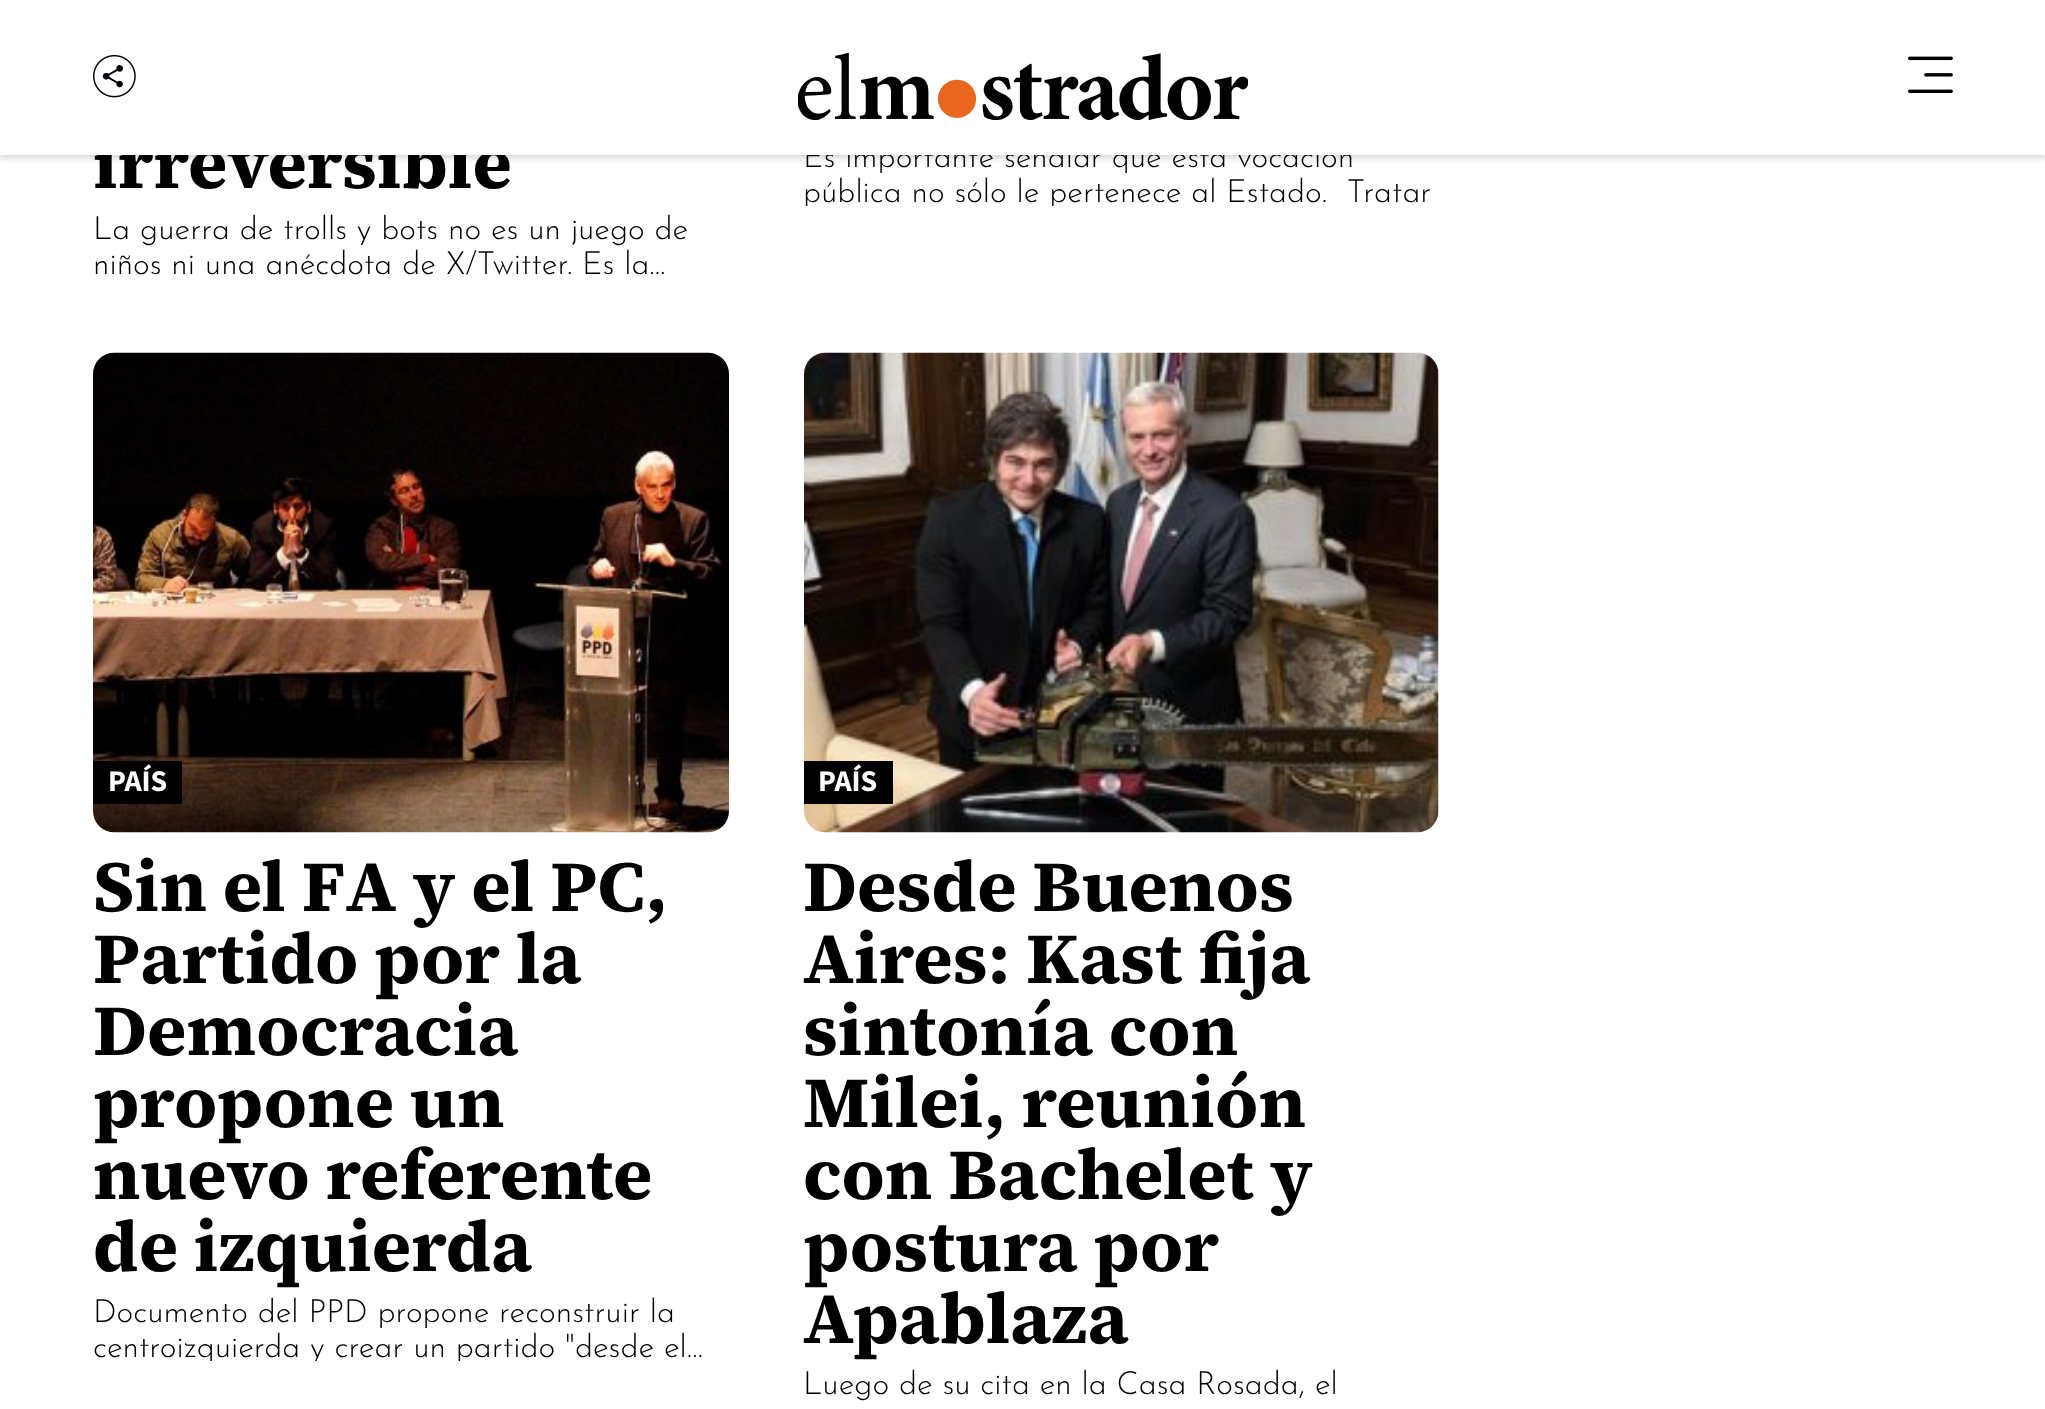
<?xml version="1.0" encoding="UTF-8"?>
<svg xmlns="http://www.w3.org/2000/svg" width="2045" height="1409">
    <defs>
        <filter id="blur1" x="-50%" y="-200%" width="200%" height="500%"><feGaussianBlur stdDeviation="3"/></filter>
        <clipPath id="clip1"><rect x="804" y="135" width="635" height="71"/></clipPath>
        <clipPath id="clip2"><rect x="93" y="1290" width="636" height="71"/></clipPath>
    </defs>
    <rect width="100%" height="100%" fill="#FFFFFF"/>
    <rect x="0" y="3" width="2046" height="155" fill="#000000" fill-opacity="0.16" filter="url(#blur1)"/>
    <text x="93" y="188" font-family="'Source Serif 4'" font-size="72" font-weight="700" fill="#000000">irreversible</text>
    <text x="803" y="167" font-family="Josefin Sans" font-size="32.1" font-weight="300" fill="#000000">Es importante señalar que esta vocación</text>
    <rect x="0" y="0" width="2045" height="155" fill="#FFFFFF"/>
    <image x="93" y="55" width="43" height="43" href="img_01.png"/>
    <image x="798" y="53" width="450" height="67" href="img_02.png"/>
    <image x="1908" y="56" width="45" height="37" href="img_03.png"/>
    <text font-family="Josefin Sans" font-size="32.1" font-weight="300" fill="#000000">
        <tspan x="93" y="239">La guerra de trolls y bots no es un juego de</tspan>
        <tspan x="93" y="274">niños ni una anécdota de X/Twitter. Es la…</tspan>
    </text>
    <g clip-path="url(#clip1)">
        <text x="803" y="202" font-family="Josefin Sans" font-size="32.1" font-weight="300" fill="#000000" xml:space="preserve">pública no sólo le pertenece al Estado.  Tratar</text>
    </g>
    <image x="93" y="352" width="636" height="481" href="img_04.png"/>
    <rect x="93" y="761" width="89" height="43" fill="#000000"/>
    <text x="108" y="791" font-family="Source Sans Pro" font-size="30" font-weight="700" fill="#FFFFFF">PAÍS</text>
    <text font-family="'Source Serif 4'" font-size="72" font-weight="700" fill="#000000">
        <tspan x="93" y="911">Sin el FA y el PC,</tspan>
        <tspan x="93" y="983">Partido por la</tspan>
        <tspan x="93" y="1055">Democracia</tspan>
        <tspan x="93" y="1127">propone un</tspan>
        <tspan x="93" y="1199">nuevo referente</tspan>
        <tspan x="93" y="1271">de izquierda</tspan>
    </text>
    <text x="93" y="1322" font-family="Josefin Sans" font-size="32.1" font-weight="300" fill="#000000">Documento del PPD propone reconstruir la</text>
    <g clip-path="url(#clip2)">
        <text x="93" y="1357" font-family="Josefin Sans" font-size="32.1" font-weight="300" fill="#000000">centroizquierda y crear un partido "desde el…</text>
    </g>
    <image x="804" y="352" width="635" height="481" href="img_05.png"/>
    <rect x="804" y="761" width="89" height="43" fill="#000000"/>
    <text x="818" y="791" font-family="Source Sans Pro" font-size="30" font-weight="700" fill="#FFFFFF">PAÍS</text>
    <text font-family="'Source Serif 4'" font-size="72" font-weight="700" fill="#000000">
        <tspan x="803" y="911">Desde Buenos</tspan>
        <tspan x="803" y="983">Aires: Kast fija</tspan>
        <tspan x="803" y="1055">sintonía con</tspan>
        <tspan x="803" y="1127">Milei, reunión</tspan>
        <tspan x="803" y="1199">con Bachelet y</tspan>
        <tspan x="803" y="1271">postura por</tspan>
        <tspan x="803" y="1343">Apablaza</tspan>
    </text>
    <text x="803" y="1394" font-family="Josefin Sans" font-size="32.1" font-weight="300" fill="#000000">Luego de su cita en la Casa Rosada, el</text>
</svg>
